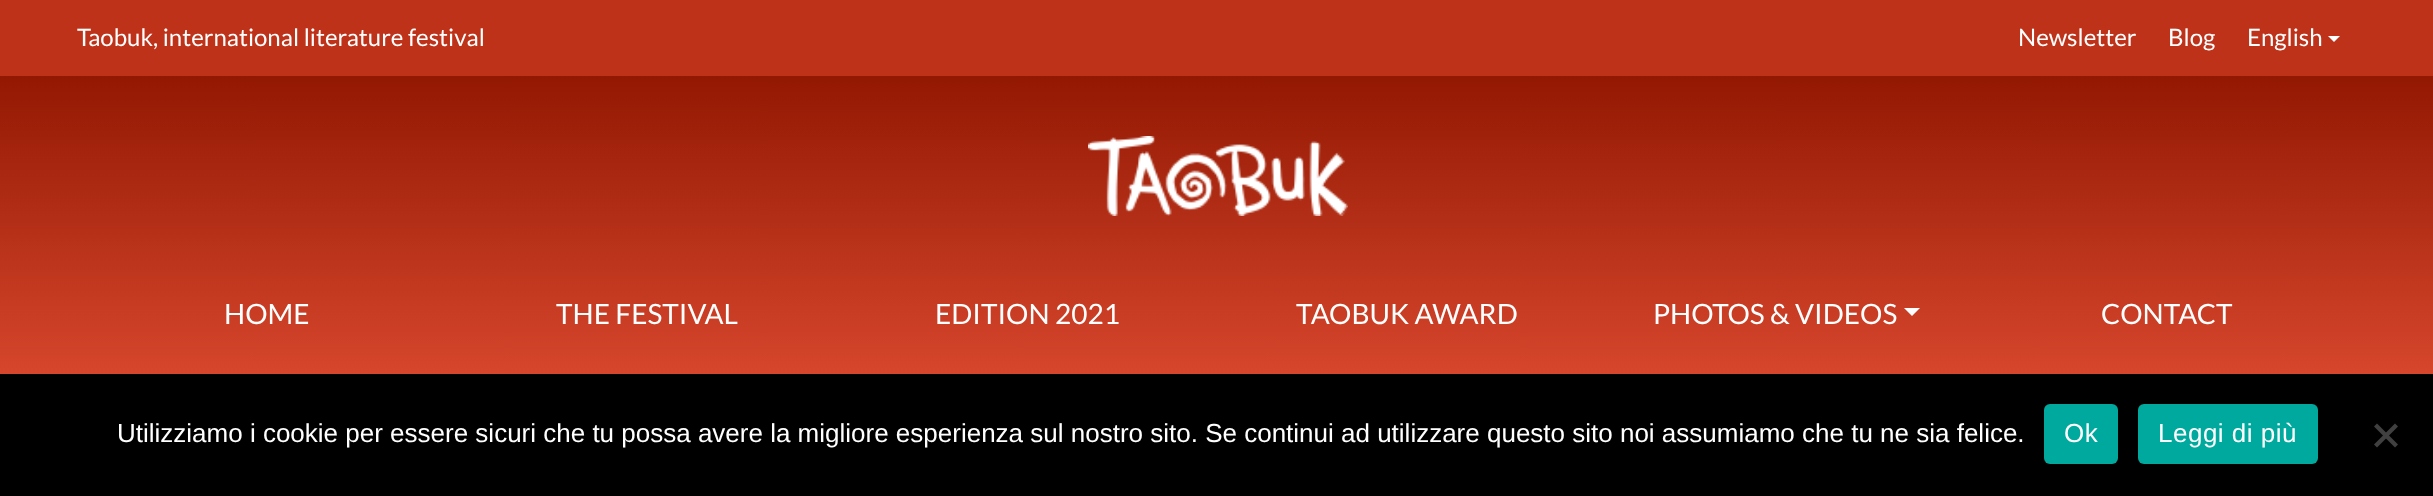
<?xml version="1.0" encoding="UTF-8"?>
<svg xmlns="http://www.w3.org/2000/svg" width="2433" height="496">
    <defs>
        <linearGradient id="g1" gradientUnits="userSpaceOnUse" x1="1217" y1="76" x2="1217" y2="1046"><stop offset="0" stop-color="#931802"/><stop offset="0.4" stop-color="#EA5439"/><stop offset="0.99" stop-color="#EA5439"/></linearGradient>
    </defs>
    <rect width="100%" height="100%" fill="#BE3219"/>
    <text x="77" y="46" font-family="Lato" font-size="24" fill="#FFFFFF">Taobuk, international literature festival</text>
    <text x="2018" y="46" font-family="Lato" font-size="24" fill="#FFFFFF">Newsletter</text>
    <text x="2168" y="46" font-family="Lato" font-size="24" fill="#FFFFFF">Blog</text>
    <text x="2247" y="46" font-family="Lato" font-size="24" fill="#FFFFFF">English</text>
    <path d="M 2328 36 H 2340 L 2334 42 Z" fill="#FFFFFF"/>
    <rect x="0" y="76" width="2433" height="298" fill="url(#g1)"/>
    <image x="1088" y="136" width="260" height="80" href="img_01.png"/>
    <text x="224" y="324" font-family="Lato" font-size="28" fill="#FFFFFF">HOME</text>
    <text x="556" y="324" font-family="Lato" font-size="28" fill="#FFFFFF">THE FESTIVAL</text>
    <text x="935" y="324" font-family="Lato" font-size="28" fill="#FFFFFF">EDITION 2021</text>
    <text x="1296" y="324" font-family="Lato" font-size="28" fill="#FFFFFF">TAOBUK AWARD</text>
    <text x="1653" y="324" font-family="Lato" font-size="28" fill="#FFFFFF">PHOTOS &amp; VIDEOS</text>
    <path d="M 1904 308 H 1920 L 1912 316 Z" fill="#FFFFFF"/>
    <text x="2101" y="324" font-family="Lato" font-size="28" fill="#FFFFFF">CONTACT</text>
    <rect x="0" y="374" width="2433" height="122" fill="#000000"/>
    <text x="117" y="442" font-family="Liberation Sans" font-size="26" fill="#FFFFFF">Utilizziamo i cookie per essere sicuri che tu possa avere la migliore esperienza sul nostro sito. Se continui ad utilizzare questo sito noi assumiamo che tu ne sia felice.</text>
    <rect x="2044" y="404" width="74" height="60" rx="6" fill="#00A99D"/>
    <text x="2064" y="442" font-family="Liberation Sans" font-size="26" letter-spacing="0.5" fill="#FFFFFF">Ok</text>
    <rect x="2138" y="404" width="180" height="60" rx="6" fill="#00A99D"/>
    <text x="2158" y="442" font-family="Liberation Sans" font-size="26" letter-spacing="0.5" fill="#FFFFFF">Leggi di più</text>
    <path d="M 2395 423.5 L 2398 426.5 L 2377 447.5 L 2374 444.5 Z" fill="#404040"/>
    <path d="M 2374 426.5 L 2377 423.5 L 2398 444.5 L 2395 447.5 Z" fill="#404040"/>
</svg>
